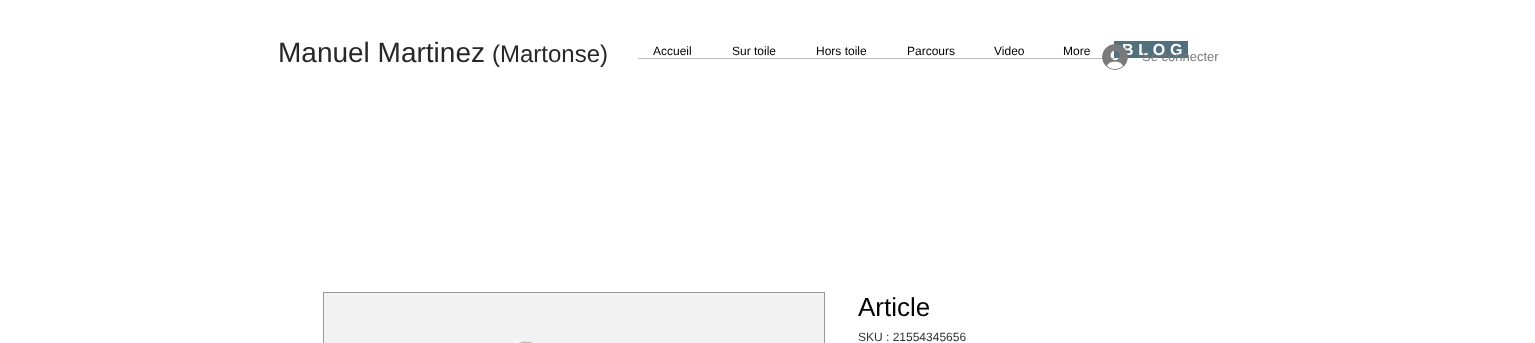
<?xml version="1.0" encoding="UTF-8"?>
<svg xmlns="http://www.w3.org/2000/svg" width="1535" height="343">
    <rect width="100%" height="100%" fill="#FFFFFF"/>
    <text x="278" y="62" font-family="Liberation Sans" font-size="28" fill="#272727">Manuel Martinez</text>
    <text x="492" y="62" font-family="Liberation Sans" font-size="24" fill="#272727">(Martonse)</text>
    <text x="653" y="55" font-family="Liberation Sans" font-size="12" fill="#000000">Accueil</text>
    <rect x="638" y="58" width="476" height="1" fill="#BFBFBF"/>
    <text x="732" y="55" font-family="Liberation Sans" font-size="12" fill="#000000">Sur toile</text>
    <text x="816" y="55" font-family="Liberation Sans" font-size="12" fill="#000000">Hors toile</text>
    <text x="907" y="55" font-family="Liberation Sans" font-size="12" fill="#000000">Parcours</text>
    <text x="994" y="55" font-family="Liberation Sans" font-size="12" fill="#000000">Video</text>
    <text x="1063" y="55" font-family="Liberation Sans" font-size="12" fill="#000000">More</text>
    <rect x="1114" y="41" width="74" height="17" fill="#51707D"/>
    <text x="1122" y="55" font-family="Liberation Sans" font-size="16" font-weight="700" letter-spacing="4.75" fill="#FFFFFF">BLOG</text>
    <image x="1102" y="44" width="26" height="26" href="img_01.png"/>
    <text x="1142" y="61" font-family="Liberation Sans" font-size="13" fill="#7A7A7A">Se connecter</text>
    <rect x="323.5" y="292.5" width="501" height="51" fill="none" stroke="#999999"/>
    <image x="324" y="293" width="500" height="50" href="img_02.png"/>
    <text x="858" y="316" font-family="Liberation Sans" font-size="26" fill="#000000">Article</text>
    <text x="858" y="341" font-family="Liberation Sans" font-size="12" fill="#333333">SKU : 21554345656</text>
</svg>
